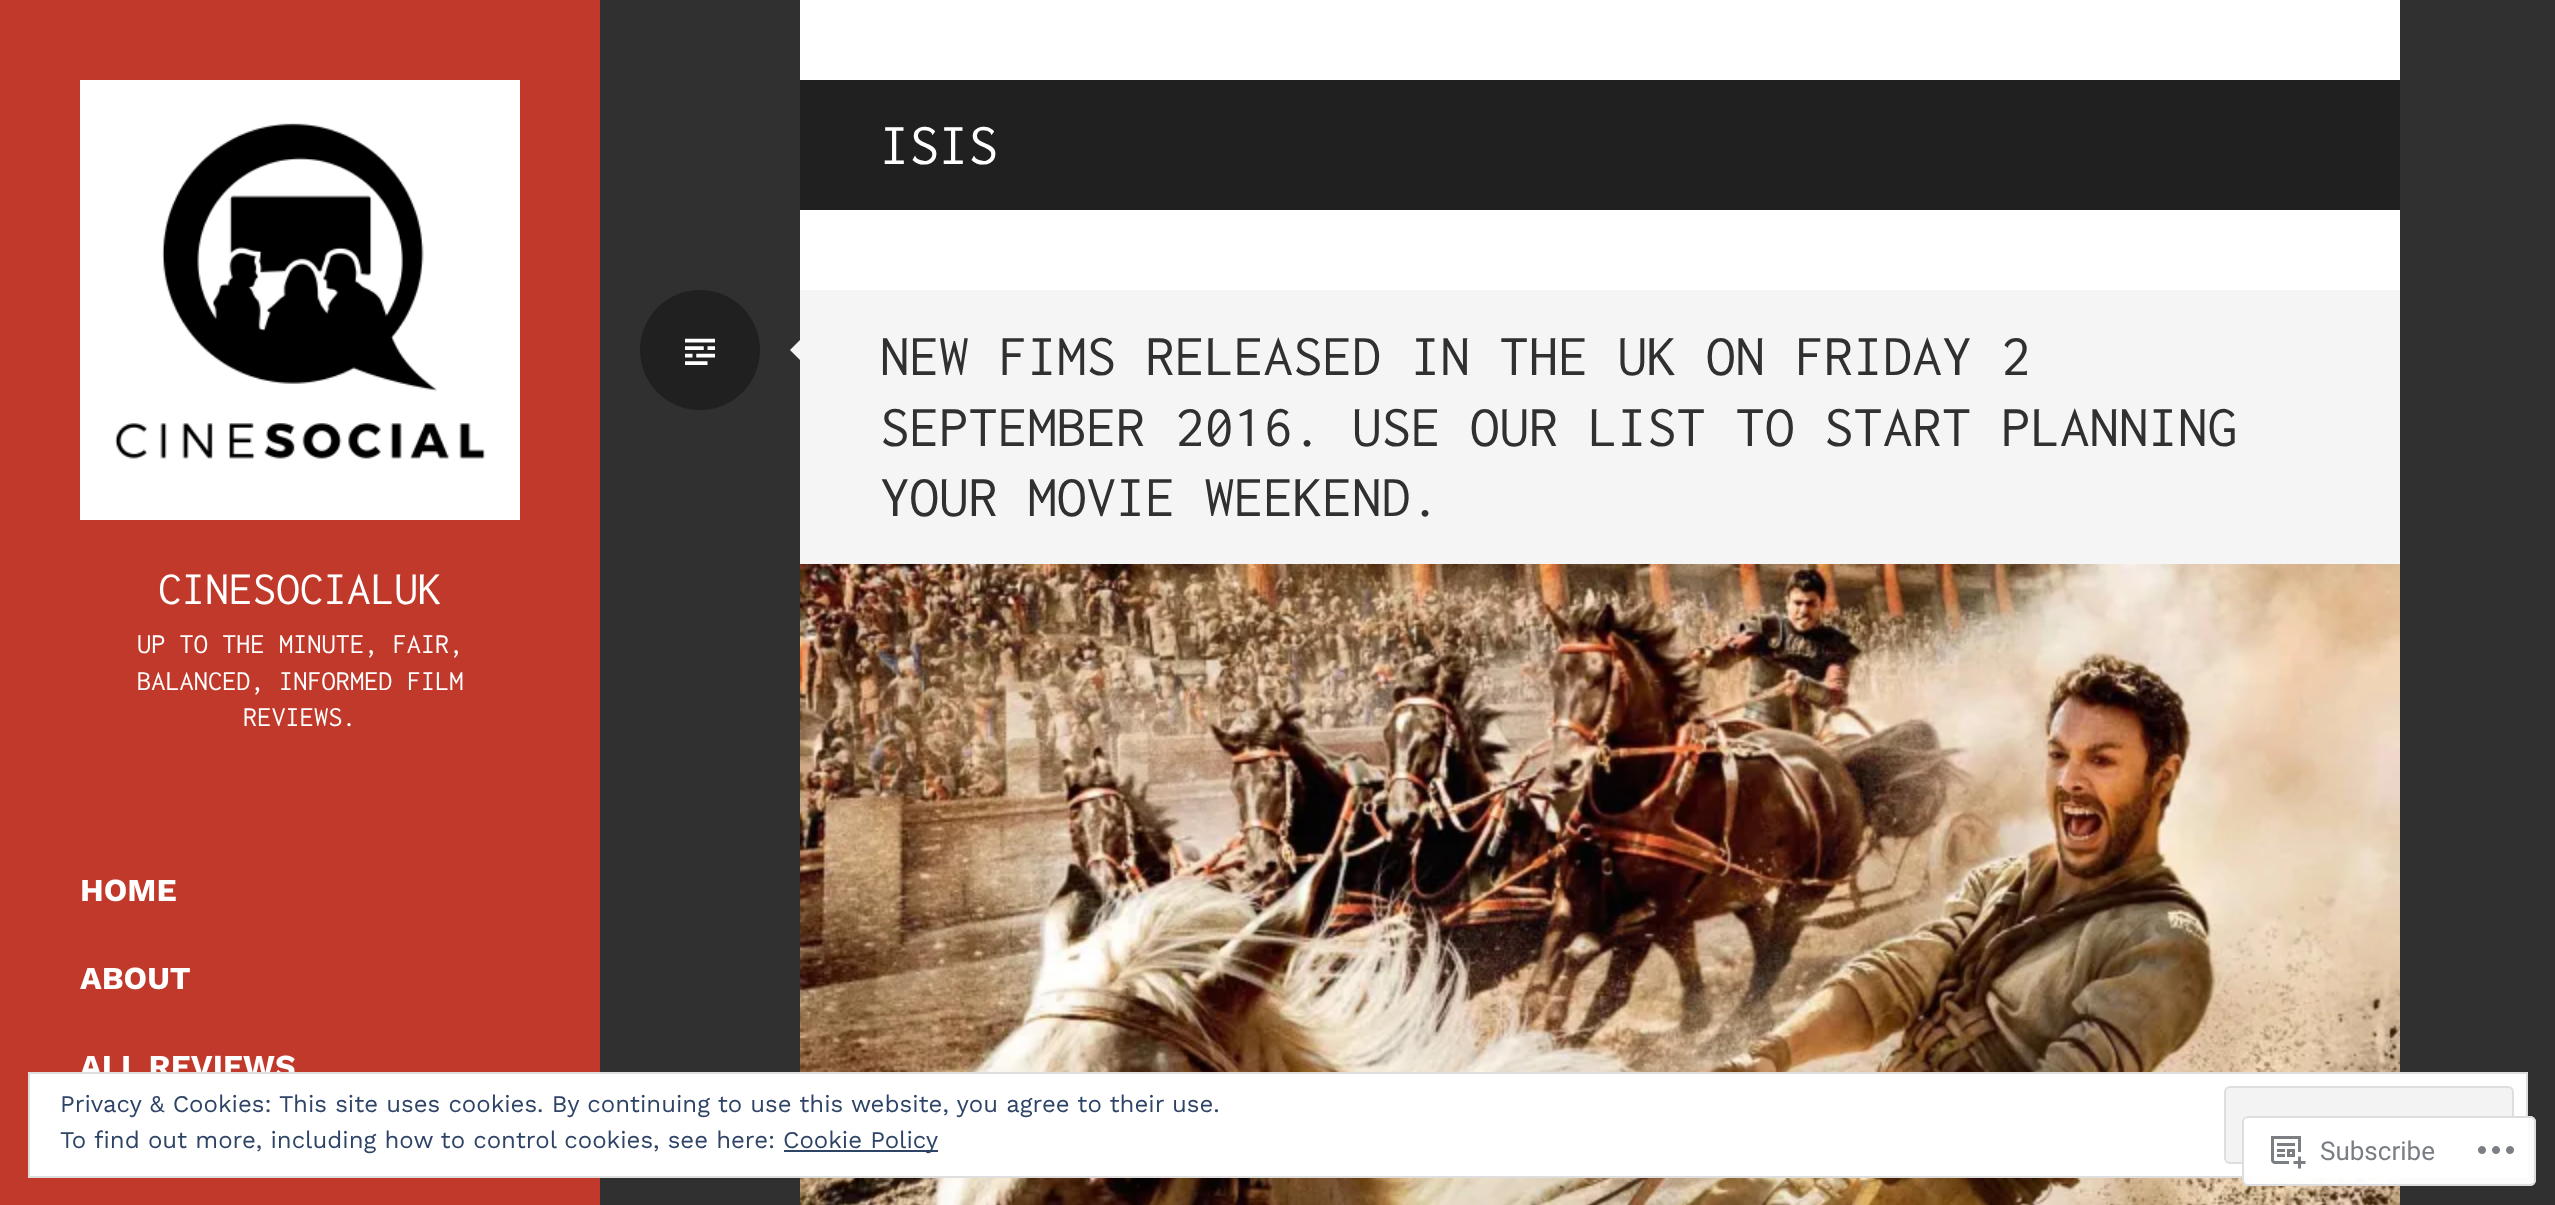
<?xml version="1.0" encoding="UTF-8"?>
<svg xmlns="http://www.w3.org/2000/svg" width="2555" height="1205">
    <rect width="100%" height="100%" fill="#303030"/>
    <rect x="0" y="0" width="600" height="1205" fill="#C0392B"/>
    <rect x="800" y="0" width="1600" height="290" fill="#FFFFFF"/>
    <rect x="800" y="80" width="1600" height="130" fill="#202020"/>
    <text x="880" y="164" font-family="Inconsolata" font-size="59" fill="#FFFFFF">ISIS</text>
    <circle cx="700" cy="350" r="60" fill="#202020"/>
    <image x="685" y="338" width="30" height="27" href="img_01.png"/>
    <rect x="800" y="290" width="1600" height="274" fill="#F5F5F5"/>
    <path d="M 800 340 V 360 L 790 350 Z" fill="#F5F5F5"/>
    <text font-family="Inconsolata" font-size="59" fill="#303030">
        <tspan x="880" y="375">NEW FIMS RELEASED IN THE UK ON FRIDAY 2</tspan>
        <tspan x="880" y="446">SEPTEMBER 2016. USE OUR LIST TO START PLANNING</tspan>
        <tspan x="880" y="516">YOUR MOVIE WEEKEND.</tspan>
    </text>
    <image x="800" y="564" width="1600" height="641" href="img_02.png"/>
    <image x="80" y="80" width="440" height="440" href="img_03.png"/>
    <text x="158" y="604" font-family="Inconsolata" font-size="47.25" fill="#FFFFFF">CINESOCIALUK</text>
    <text font-family="Inconsolata" font-size="28.4" fill="#FFFFFF">
        <tspan x="137" y="653">UP TO THE MINUTE, FAIR,</tspan>
        <tspan x="137" y="690">BALANCED, INFORMED FILM</tspan>
    </text>
    <text x="243" y="726" font-family="Inconsolata" font-size="28.4" fill="#FFFFFF">REVIEWS.</text>
    <text x="80" y="901" font-family="Work Sans" font-size="32" font-weight="700" fill="#FFFFFF">HOME</text>
    <text x="80" y="989" font-family="Work Sans" font-size="32" font-weight="700" fill="#FFFFFF">ABOUT</text>
    <text x="80" y="1077" font-family="Work Sans" font-size="32" font-weight="700" fill="#FFFFFF">ALL REVIEWS</text>
    <rect x="29" y="1073" width="2498" height="104" fill="#FFFFFF" stroke="#DEDEDE" stroke-width="2"/>
    <text x="60" y="1112" font-family="Work Sans" font-size="24" fill="#2E4467">Privacy &amp; Cookies: This site uses cookies. By continuing to use this website, you agree to their use.</text>
    <rect x="2225" y="1087" width="288" height="76" rx="5" fill="#F3F3F3" stroke="#DEDEDE" stroke-width="2"/>
    <text x="60" y="1148" font-family="Work Sans" font-size="24" fill="#2E4467">To find out more, including how to control cookies, see here:</text>
    <rect x="784" y="1150" width="154" height="2" fill="#2E4467"/>
    <text x="783" y="1148" font-family="Work Sans" font-size="24" fill="#2E4467">Cookie Policy</text>
    <rect x="2242" y="1116" width="294" height="70" rx="6" fill="#FFFFFF" fill-opacity="0.98"/>
    <rect x="2243" y="1117" width="292" height="68" rx="5" fill="none" stroke="#DCDCDE" stroke-opacity="0.98" stroke-width="2"/>
    <image x="2271" y="1136" width="35" height="33" href="img_04.png"/>
    <text x="2320" y="1160" font-family="Roboto" font-size="26" fill="#7A7E84">Subscribe</text>
    <image x="2478" y="1146" width="36" height="8" href="img_05.png"/>
</svg>
